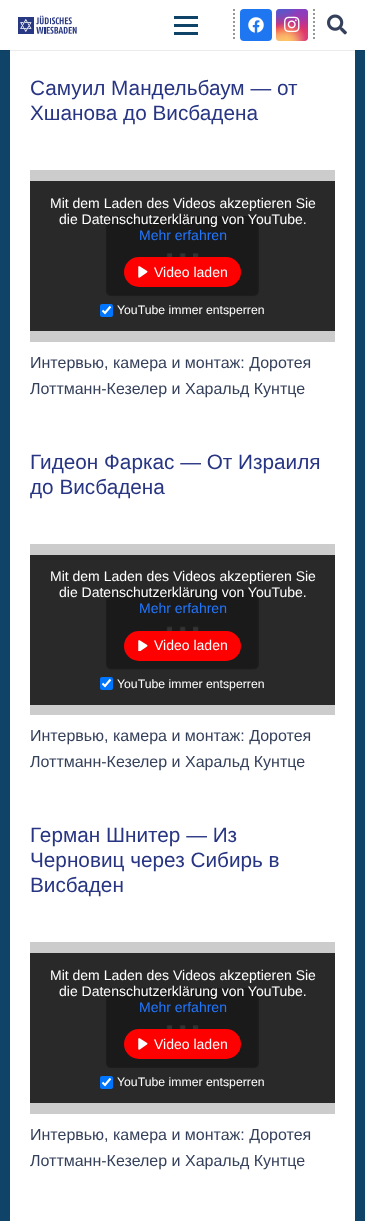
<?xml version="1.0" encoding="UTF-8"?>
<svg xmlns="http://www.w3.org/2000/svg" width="365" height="1221">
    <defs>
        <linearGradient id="g1" gradientUnits="userSpaceOnUse" x1="292" y1="9" x2="292" y2="41"><stop offset="0" stop-color="#6559CA"/><stop offset="0.3" stop-color="#BC318F"/><stop offset="0.5" stop-color="#E42E66"/><stop offset="0.7" stop-color="#FA5332"/><stop offset="1" stop-color="#FFDC80"/></linearGradient>
        <radialGradient id="g2" gradientUnits="userSpaceOnUse" cx="308" cy="41" r="45"><stop offset="0" stop-color="#D9317A"/><stop offset="1" stop-color="#D9317A" stop-opacity="0"/></radialGradient>
        <radialGradient id="g3" gradientUnits="userSpaceOnUse" cx="0" cy="0" r="1" gradientTransform="matrix(27 0 0 54 295 2.6)"><stop offset="0" stop-color="#893DC2"/><stop offset="0.5" stop-color="#893DC2" stop-opacity="0"/></radialGradient>
        <radialGradient id="g4" gradientUnits="userSpaceOnUse" cx="308" cy="9" r="45"><stop offset="0" stop-color="#893DC2"/><stop offset="0.5" stop-color="#893DC2" stop-opacity="0"/></radialGradient>
        <radialGradient id="g5" gradientUnits="userSpaceOnUse" cx="0" cy="0" r="1" gradientTransform="matrix(36 0 0 68 282 -7)"><stop offset="0" stop-color="#5258CF"/><stop offset="0.5" stop-color="#5258CF" stop-opacity="0"/></radialGradient>
        <radialGradient id="g6" gradientUnits="userSpaceOnUse" cx="0" cy="0" r="1" gradientTransform="matrix(45 0 0 57 276 1)"><stop offset="0" stop-color="#5258CF"/><stop offset="0.5" stop-color="#5258CF" stop-opacity="0"/></radialGradient>
        <radialGradient id="g7" gradientUnits="userSpaceOnUse" cx="279" cy="54" r="53"><stop offset="0" stop-color="#FEDA7E"/><stop offset="0.5" stop-color="#FEDA7E" stop-opacity="0"/></radialGradient>
        <radialGradient id="g8" gradientUnits="userSpaceOnUse" cx="287" cy="41" r="38"><stop offset="0" stop-color="#FEC564"/><stop offset="0.5" stop-color="#FEC564" stop-opacity="0"/></radialGradient>
    </defs>
    <rect width="100%" height="100%" fill="#0F4468"/>
    <rect x="0" y="50" width="365" height="1" fill="#0E3F60"/>
    <rect x="0" y="0" width="365" height="50" fill="#FFFFFF"/>
    <image x="18" y="15" width="59" height="19" href="img_01.png"/>
    <rect x="174" y="24" width="24" height="3" fill="#0F4468"/>
    <rect x="174" y="16" width="24" height="3" fill="#0F4468"/>
    <rect x="174" y="32" width="24" height="3" fill="#0F4468"/>
    <path d="M 314 9 V 41" fill="none" stroke="#989898" stroke-width="2" stroke-dasharray="2 2"/>
    <path d="M 234 9 V 41" fill="none" stroke="#989898" stroke-width="2" stroke-dasharray="2 2"/>
    <rect x="240" y="9" width="32" height="32" rx="4" fill="#1E77F0"/>
    <image x="248" y="17" width="16" height="16" href="img_02.png"/>
    <rect x="276" y="9" width="32" height="32" rx="4" fill="url(#g1)"/>
    <rect x="276" y="9" width="32" height="32" rx="4" fill="url(#g2)"/>
    <rect x="276" y="9" width="32" height="32" rx="4" fill="url(#g3)"/>
    <rect x="276" y="9" width="32" height="32" rx="4" fill="url(#g4)"/>
    <rect x="276" y="9" width="32" height="32" rx="4" fill="url(#g5)"/>
    <rect x="276" y="9" width="32" height="32" rx="4" fill="url(#g6)"/>
    <rect x="276" y="9" width="32" height="32" rx="4" fill="url(#g7)"/>
    <rect x="276" y="9" width="32" height="32" rx="4" fill="url(#g8)"/>
    <image x="284" y="16" width="16" height="17" href="img_03.png"/>
    <image x="327" y="14" width="20" height="21" href="img_04.png"/>
    <rect x="10" y="51" width="345" height="1170" fill="#FFFFFF"/>
    <rect x="10" y="50" width="345" height="1" fill="#EBEBEB"/>
    <text font-family="Liberation Sans" font-size="20.75" fill="#283583">
        <tspan x="30" y="95">Самуил Мандельбаум — от</tspan>
        <tspan x="30" y="120">Хшанова до Висбадена</tspan>
    </text>
    <image x="30" y="170" width="305" height="172" href="img_05.png"/>
    <rect x="30" y="181" width="305" height="150" fill="#000000" fill-opacity="0.8"/>
    <text x="50" y="208" font-family="Liberation Sans" font-size="14" fill="#FFFFFF">Mit dem Laden des Videos akzeptieren Sie</text>
    <text x="59" y="224" font-family="Liberation Sans" font-size="14" fill="#FFFFFF">die Datenschutzerklärung von YouTube.</text>
    <text x="139" y="240" font-family="Liberation Sans" font-size="14" fill="#2277FF">Mehr erfahren</text>
    <rect x="124" y="257" width="117" height="30" rx="15" fill="#FF0000"/>
    <image x="138" y="266" width="10" height="12" href="img_06.png"/>
    <text x="154" y="277" font-family="Liberation Sans" font-size="14" fill="#FFFFFF">Video laden</text>
    <rect x="100" y="304" width="13" height="13" rx="2" fill="#0075FF"/>
    <path d="M 102.5 310.5 L 105 313 L 110.5 306.5" fill="none" stroke="#FFFFFF" stroke-width="2.1"/>
    <text x="117" y="314" font-family="Liberation Sans" font-size="12.25" fill="#FFFFFF">YouTube immer entsperren</text>
    <text font-family="Liberation Sans" font-size="16" fill="#35415B">
        <tspan x="30" y="368">Интервью, камера и монтаж: Доротея</tspan>
        <tspan x="30" y="394">Лоттманн-Кезелер и Харальд Кунтце</tspan>
    </text>
    <text font-family="Liberation Sans" font-size="20.75" fill="#283583">
        <tspan x="30" y="469">Гидеон Фаркас — От Израиля</tspan>
        <tspan x="30" y="494">до Висбадена</tspan>
    </text>
    <image x="30" y="544" width="305" height="171" href="img_07.png"/>
    <rect x="30" y="555" width="305" height="150" fill="#000000" fill-opacity="0.8"/>
    <text x="50" y="581" font-family="Liberation Sans" font-size="14" fill="#FFFFFF">Mit dem Laden des Videos akzeptieren Sie</text>
    <text x="59" y="597" font-family="Liberation Sans" font-size="14" fill="#FFFFFF">die Datenschutzerklärung von YouTube.</text>
    <text x="139" y="613" font-family="Liberation Sans" font-size="14" fill="#2277FF">Mehr erfahren</text>
    <rect x="124" y="631" width="117" height="30" rx="15" fill="#FF0000"/>
    <image x="138" y="640" width="10" height="11" href="img_08.png"/>
    <text x="154" y="650" font-family="Liberation Sans" font-size="14" fill="#FFFFFF">Video laden</text>
    <rect x="100" y="677" width="13" height="13" rx="2" fill="#0075FF"/>
    <path d="M 102.5 683.5 L 105 686 L 110.5 679.5" fill="none" stroke="#FFFFFF" stroke-width="2.1"/>
    <text x="117" y="688" font-family="Liberation Sans" font-size="12.25" fill="#FFFFFF">YouTube immer entsperren</text>
    <text font-family="Liberation Sans" font-size="16" fill="#35415B">
        <tspan x="30" y="741">Интервью, камера и монтаж: Доротея</tspan>
        <tspan x="30" y="767">Лоттманн-Кезелер и Харальд Кунтце</tspan>
    </text>
    <text font-family="Liberation Sans" font-size="20.75" fill="#283583">
        <tspan x="30" y="842">Герман Шнитер — Из</tspan>
        <tspan x="30" y="867">Черновиц через Сибирь в</tspan>
        <tspan x="30" y="892">Висбаден</tspan>
    </text>
    <image x="30" y="942" width="305" height="172" href="img_05.png"/>
    <rect x="30" y="953" width="305" height="150" fill="#000000" fill-opacity="0.8"/>
    <text x="50" y="980" font-family="Liberation Sans" font-size="14" fill="#FFFFFF">Mit dem Laden des Videos akzeptieren Sie</text>
    <text x="59" y="996" font-family="Liberation Sans" font-size="14" fill="#FFFFFF">die Datenschutzerklärung von YouTube.</text>
    <text x="139" y="1012" font-family="Liberation Sans" font-size="14" fill="#2277FF">Mehr erfahren</text>
    <rect x="124" y="1029" width="117" height="30" rx="15" fill="#FF0000"/>
    <image x="138" y="1038" width="10" height="12" href="img_06.png"/>
    <text x="154" y="1049" font-family="Liberation Sans" font-size="14" fill="#FFFFFF">Video laden</text>
    <rect x="100" y="1076" width="13" height="13" rx="2" fill="#0075FF"/>
    <path d="M 102.5 1082.5 L 105 1085 L 110.5 1078.5" fill="none" stroke="#FFFFFF" stroke-width="2.1"/>
    <text x="117" y="1086" font-family="Liberation Sans" font-size="12.25" fill="#FFFFFF">YouTube immer entsperren</text>
    <text font-family="Liberation Sans" font-size="16" fill="#35415B">
        <tspan x="30" y="1140">Интервью, камера и монтаж: Доротея</tspan>
        <tspan x="30" y="1166">Лоттманн-Кезелер и Харальд Кунтце</tspan>
    </text>
</svg>
